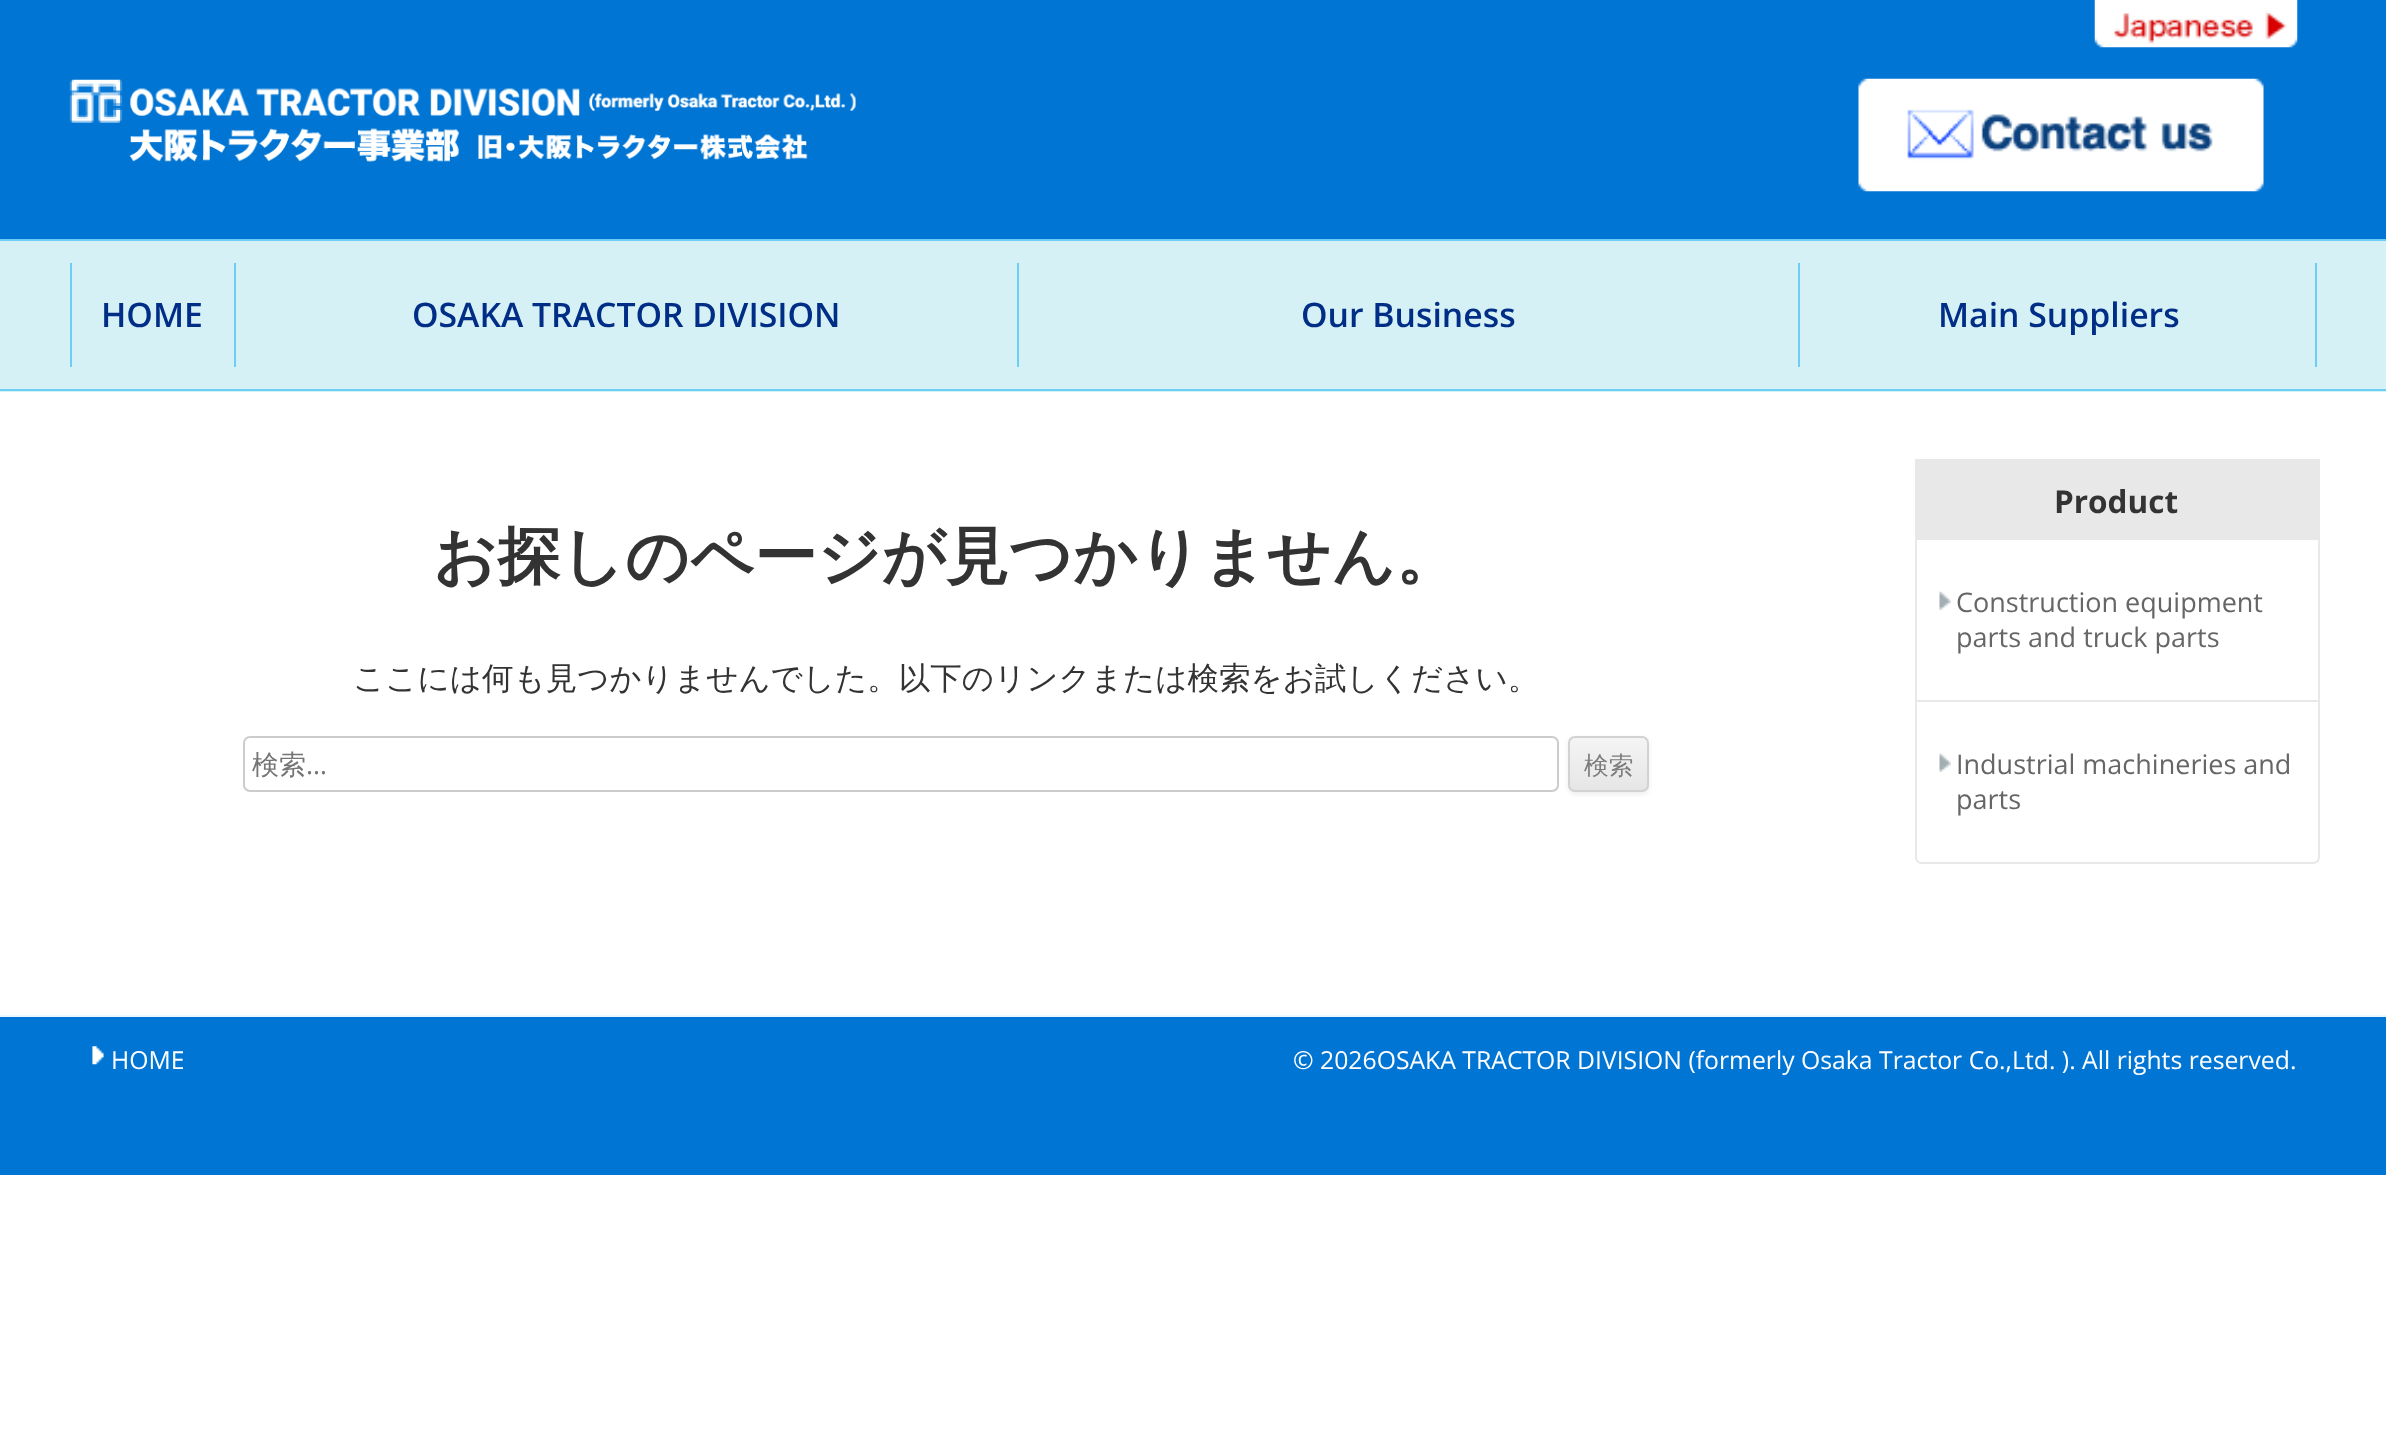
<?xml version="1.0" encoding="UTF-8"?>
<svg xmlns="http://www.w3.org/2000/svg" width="2386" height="1441">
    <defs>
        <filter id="blur1" x="-50%" y="-200%" width="200%" height="500%"><feGaussianBlur stdDeviation="2"/></filter>
        <clipPath id="clip1"><rect x="1568" y="736" width="81" height="56" rx="7"/></clipPath>
        <linearGradient id="g1" gradientUnits="userSpaceOnUse" x1="1609" y1="738" x2="1609" y2="790"><stop offset="0" stop-color="#F4F4F4"/><stop offset="1" stop-color="#E6E6E6"/></linearGradient>
    </defs>
    <rect width="100%" height="100%" fill="#FFFFFF"/>
    <rect x="0" y="0" width="2386" height="239" fill="#0075D4"/>
    <image x="2094" y="0" width="204" height="48" href="img_01.png"/>
    <image x="69" y="79" width="787" height="83" href="img_02.png"/>
    <image x="1858" y="78" width="406" height="114" href="img_03.png"/>
    <rect x="0" y="241" width="2386" height="151" fill="#D5F1F6"/>
    <rect x="0" y="239" width="2386" height="2" fill="#6CCDF5"/>
    <rect x="0" y="389" width="2386" height="2" fill="#6CCDF5"/>
    <rect x="70" y="263" width="2" height="104" fill="#6CCDF5"/>
    <rect x="234" y="263" width="2" height="104" fill="#6CCDF5"/>
    <text x="101" y="327" font-family="Open Sans" font-size="33.75" font-weight="600" fill="#002E86">HOME</text>
    <rect x="1017" y="263" width="2" height="104" fill="#6CCDF5"/>
    <text x="412" y="327" font-family="Open Sans" font-size="33.75" font-weight="600" fill="#002E86">OSAKA TRACTOR DIVISION</text>
    <rect x="1798" y="263" width="2" height="104" fill="#6CCDF5"/>
    <text x="1301" y="327" font-family="Open Sans" font-size="33.75" font-weight="600" fill="#002E86">Our Business</text>
    <rect x="2315" y="263" width="2" height="104" fill="#6CCDF5"/>
    <text x="1938" y="327" font-family="Open Sans" font-size="33.75" font-weight="600" fill="#002E86">Main Suppliers</text>
    <text x="433" y="578" font-family="WenQuanYi Zen Hei" font-size="63" font-weight="700" fill="#333333">お探しのページが見つかりません。</text>
    <text x="353" y="689" font-family="WenQuanYi Zen Hei" font-size="31.5" font-weight="500" fill="#333333">ここには何も見つかりませんでした。以下のリンクまたは検索をお試しください。</text>
    <rect x="244" y="737" width="1314" height="54" rx="6" fill="none" stroke="#CCCCCC" stroke-width="2"/>
    <text x="252" y="774" font-family="WenQuanYi Zen Hei" font-size="27" font-weight="500" fill="#757575">検索</text>
    <text x="306" y="774" font-family="Open Sans" font-size="27" fill="#757575">…</text>
    <rect x="1568" y="738" width="81" height="56" rx="7" fill="#404040" fill-opacity="0.1" filter="url(#blur1)"/>
    <g clip-path="url(#clip1)">
        <rect x="1568" y="738" width="81" height="52" fill="url(#g1)"/>
    </g>
    <rect x="1569" y="737" width="79" height="54" rx="6" fill="none" stroke="#D2D2D2" stroke-width="2"/>
    <text x="1584" y="774" font-family="WenQuanYi Zen Hei" font-size="24.75" font-weight="500" fill="#7C7C7C">検索</text>
    <rect x="1915" y="459" width="405" height="79" fill="#E8E8E8"/>
    <text x="2054" y="513" font-family="Open Sans" font-size="31.5" font-weight="700" fill="#333333">Product</text>
    <image x="1939" y="591" width="12" height="19" href="img_04.png"/>
    <rect x="1916" y="539" width="403" height="162" fill="none" stroke="#E8E8E8" stroke-width="2"/>
    <text font-family="Open Sans" font-size="27" fill="#666666">
        <tspan x="1956" y="612">Construction equipment</tspan>
        <tspan x="1956" y="647">parts and truck parts</tspan>
    </text>
    <image x="1939" y="753" width="12" height="19" href="img_04.png"/>
    <path d="M 1915 702 H 2320 V 857 C 2320 861 2317 864 2313 864 H 1922 C 1918 864 1915 861 1915 857 Z M 1917 702 H 2318 V 857 C 2318 860 2315 862 2313 862 H 1922 C 1919 862 1917 860 1917 857 Z" fill="#E8E8E8" fill-rule="evenodd"/>
    <text font-family="Open Sans" font-size="27" fill="#666666">
        <tspan x="1956" y="774">Industrial machineries and</tspan>
        <tspan x="1956" y="809">parts</tspan>
    </text>
    <rect x="0" y="1015" width="2386" height="2" fill="#E9F8FD"/>
    <rect x="0" y="1017" width="2386" height="158" fill="#0075D4"/>
    <image x="92" y="1046" width="12" height="19" href="img_05.png"/>
    <text x="111" y="1069" font-family="Open Sans" font-size="24.75" fill="#FFFFFF">HOME</text>
    <text x="1293" y="1069" font-family="Open Sans" font-size="24.75" fill="#FFFFFF">© 2026OSAKA TRACTOR DIVISION (formerly Osaka Tractor Co.,Ltd. ). All rights reserved.</text>
</svg>
